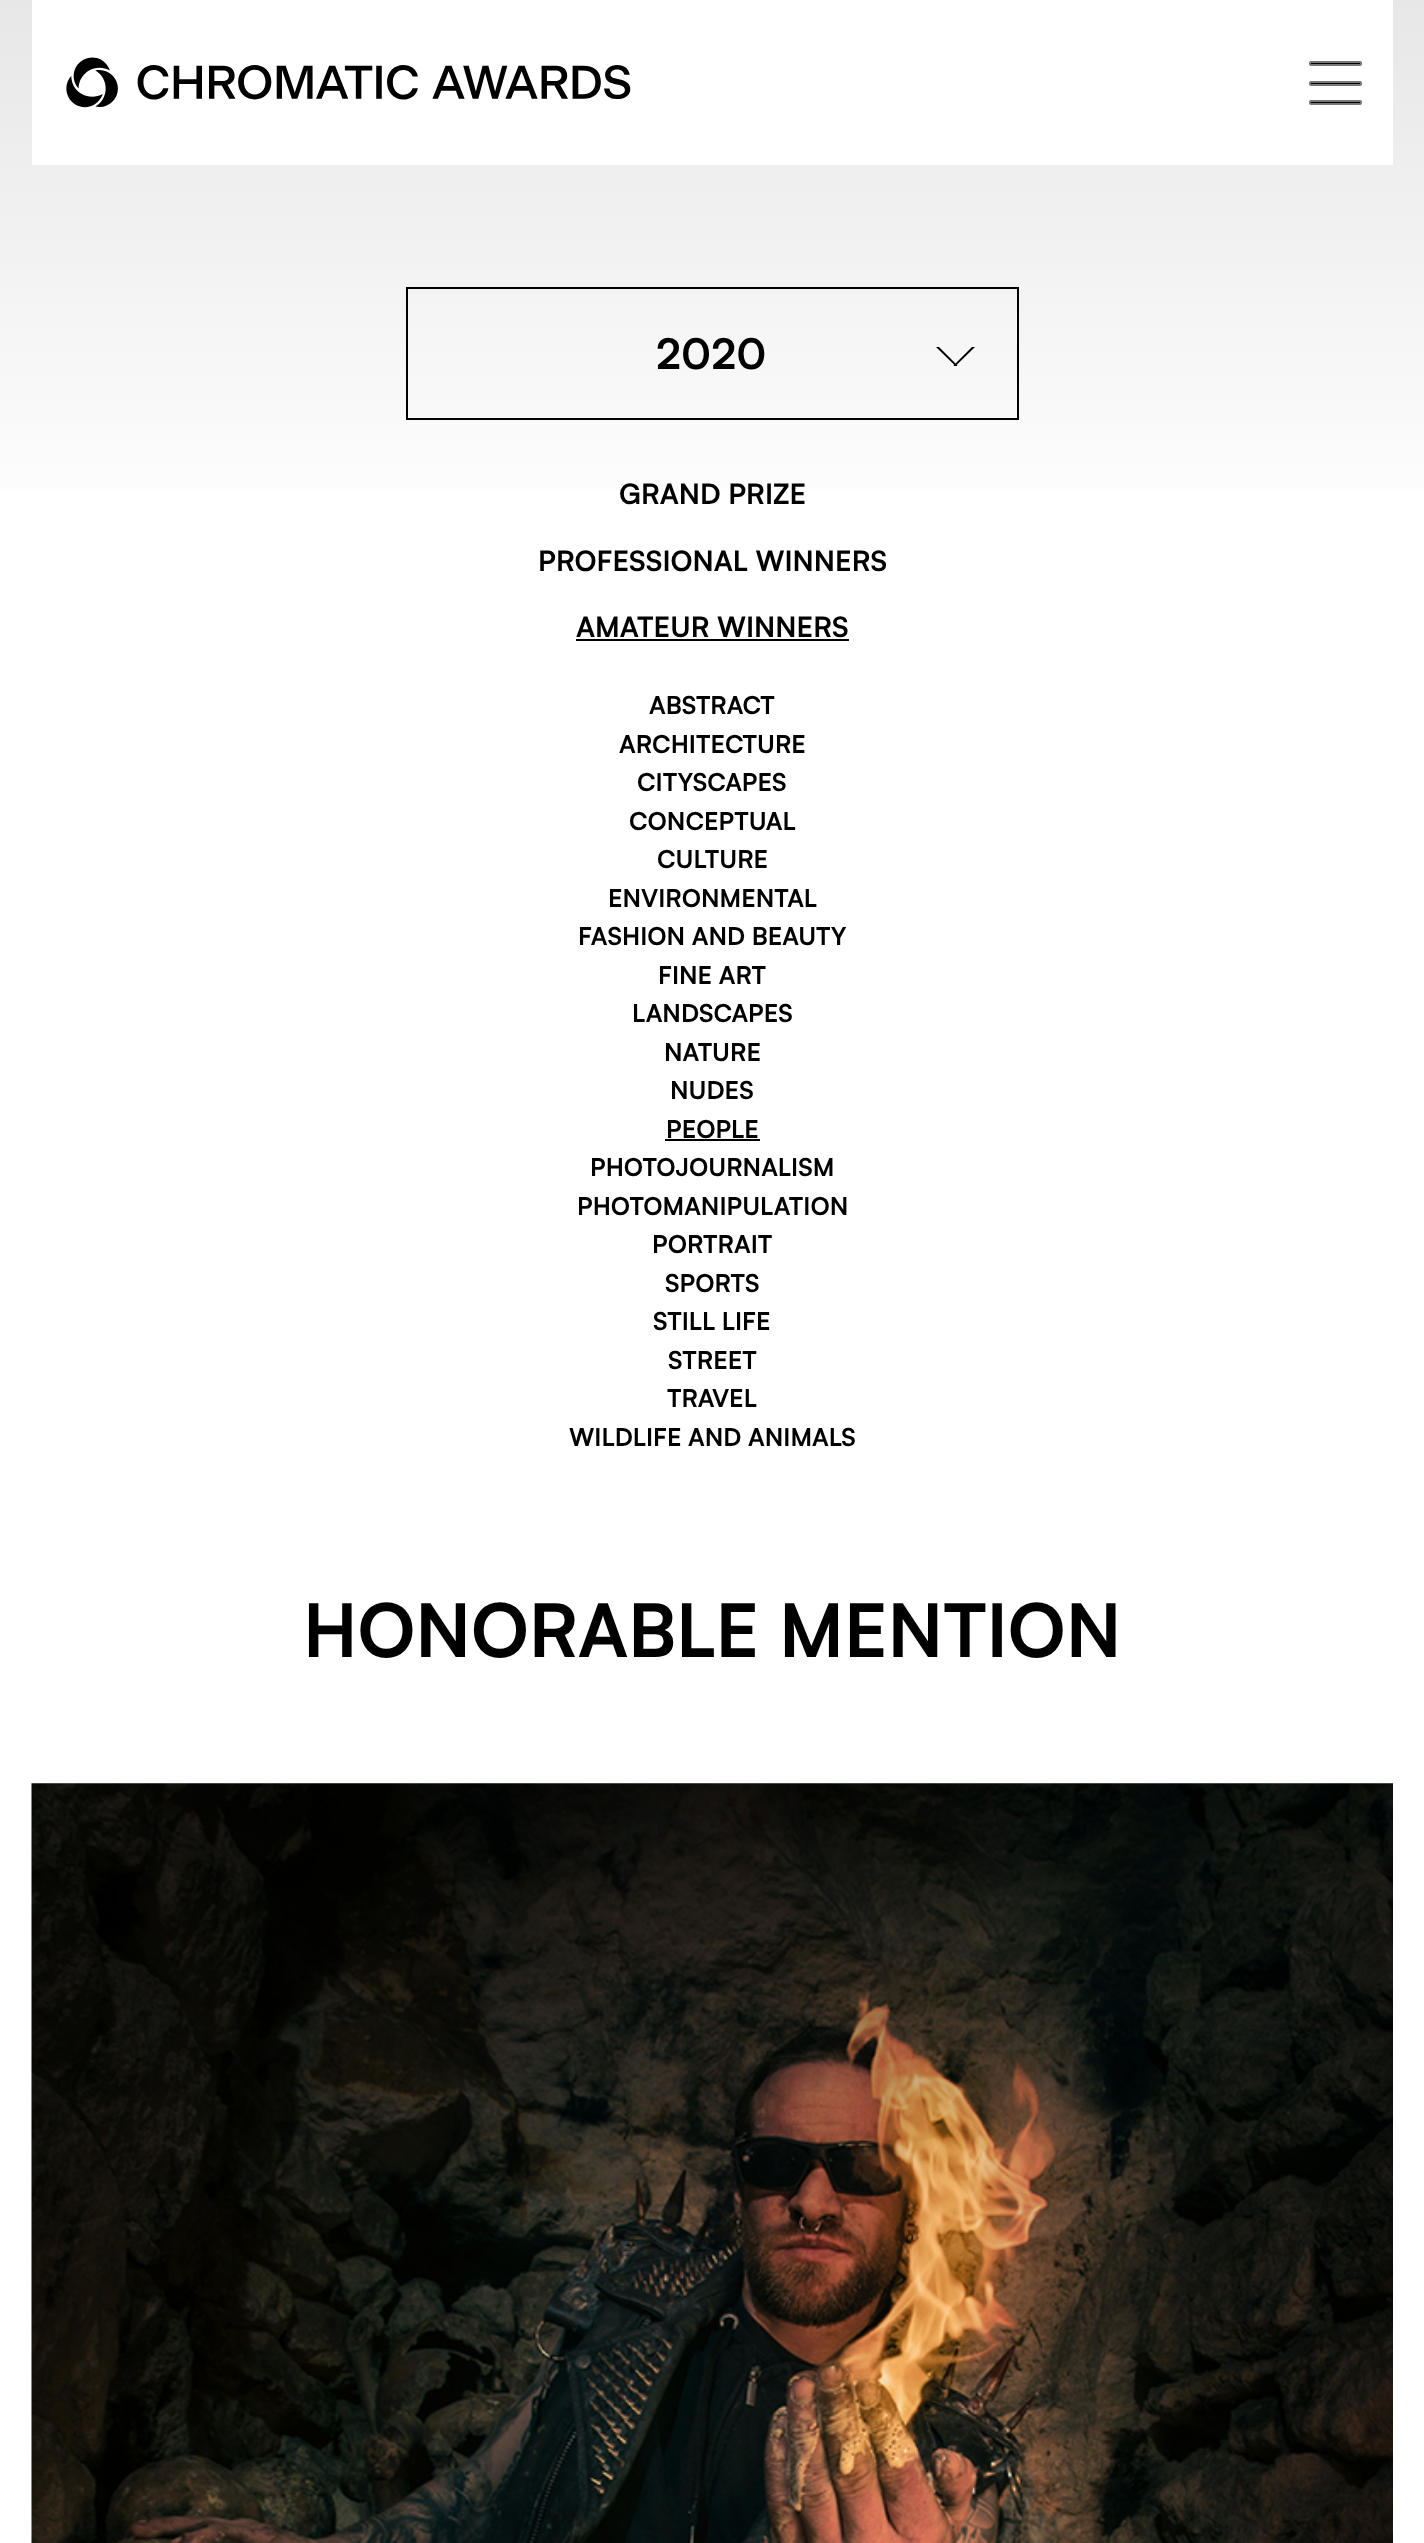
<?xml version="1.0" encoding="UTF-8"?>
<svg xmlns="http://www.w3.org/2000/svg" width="1424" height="2543">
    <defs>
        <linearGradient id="g1" gradientUnits="userSpaceOnUse" x1="712" y1="0" x2="712" y2="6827"><stop offset="0" stop-color="#E7E7E7"/><stop offset="0.08" stop-color="#FFFFFF"/><stop offset="1" stop-color="#FFFFFF"/></linearGradient>
        <clipPath id="clip1"><rect x="936" y="347" width="39" height="19"/></clipPath>
    </defs>
    <rect width="100%" height="100%" fill="#FFFFFF"/>
    <rect x="0" y="0" width="1424" height="489" fill="url(#g1)"/>
    <rect x="32" y="0" width="1361" height="165" fill="#FFFFFF"/>
    <image x="66" y="57" width="565" height="51" href="img_01.png"/>
    <rect x="1310" y="62" width="51" height="3" rx="1" fill="#000000" stroke="#777777" stroke-width="2"/>
    <rect x="1310" y="82" width="51" height="3" rx="1" fill="#000000" stroke="#777777" stroke-width="2"/>
    <rect x="1310" y="101" width="51" height="3" rx="1" fill="#000000" stroke="#777777" stroke-width="2"/>
    <rect x="407" y="288" width="611" height="131" fill="none" stroke="#000000" stroke-width="2"/>
    <text x="656" y="369" font-family="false" font-size="42" font-weight="700" letter-spacing="0.5" fill="#000000">2020</text>
    <g clip-path="url(#clip1)">
        <path d="M 937.5 345.5 L 957.5 365.5 L 956 366.5 L 936 347 Z" fill="#000000"/>
        <path d="M 953.5 365.5 L 973.5 345.5 L 975 347 L 955 366.5 Z" fill="#000000"/>
    </g>
    <text x="619" y="504" font-family="false" font-size="28" font-weight="700" fill="#000000">GRAND PRIZE</text>
    <text x="538" y="571" font-family="false" font-size="28" font-weight="700" fill="#000000">PROFESSIONAL WINNERS</text>
    <text x="576" y="637" font-family="false" font-size="28" font-weight="700" fill="#000000">AMATEUR WINNERS</text>
    <rect x="576" y="639" width="273" height="2" fill="#000000"/>
    <text x="649" y="714" font-family="false" font-size="24.5" font-weight="700" fill="#000000">ABSTRACT</text>
    <text x="619" y="753" font-family="false" font-size="24.5" font-weight="700" fill="#000000">ARCHITECTURE</text>
    <text x="637" y="791" font-family="false" font-size="24.5" font-weight="700" fill="#000000">CITYSCAPES</text>
    <text x="629" y="830" font-family="false" font-size="24.5" font-weight="700" fill="#000000">CONCEPTUAL</text>
    <text x="657" y="868" font-family="false" font-size="24.5" font-weight="700" fill="#000000">CULTURE</text>
    <text x="608" y="907" font-family="false" font-size="24.5" font-weight="700" fill="#000000">ENVIRONMENTAL</text>
    <text x="578" y="945" font-family="false" font-size="24.5" font-weight="700" fill="#000000">FASHION AND BEAUTY</text>
    <text x="658" y="984" font-family="false" font-size="24.5" font-weight="700" fill="#000000">FINE ART</text>
    <text x="632" y="1022" font-family="false" font-size="24.5" font-weight="700" fill="#000000">LANDSCAPES</text>
    <text x="664" y="1061" font-family="false" font-size="24.5" font-weight="700" fill="#000000">NATURE</text>
    <text x="670" y="1099" font-family="false" font-size="24.5" font-weight="700" fill="#000000">NUDES</text>
    <text x="666" y="1138" font-family="false" font-size="24.5" font-weight="700" fill="#000000">PEOPLE</text>
    <rect x="665" y="1139" width="95" height="2" fill="#000000"/>
    <text x="590" y="1176" font-family="false" font-size="24.5" font-weight="700" fill="#000000">PHOTOJOURNALISM</text>
    <text x="577" y="1215" font-family="false" font-size="24.5" font-weight="700" fill="#000000">PHOTOMANIPULATION</text>
    <text x="652" y="1253" font-family="false" font-size="24.5" font-weight="700" fill="#000000">PORTRAIT</text>
    <text x="665" y="1292" font-family="false" font-size="24.5" font-weight="700" fill="#000000">SPORTS</text>
    <text x="653" y="1330" font-family="false" font-size="24.5" font-weight="700" fill="#000000">STILL LIFE</text>
    <text x="668" y="1369" font-family="false" font-size="24.5" font-weight="700" fill="#000000">STREET</text>
    <text x="667" y="1407" font-family="false" font-size="24.5" font-weight="700" fill="#000000">TRAVEL</text>
    <text x="569" y="1446" font-family="false" font-size="24.5" font-weight="700" fill="#000000">WILDLIFE AND ANIMALS</text>
    <text x="303" y="1657" font-family="false" font-size="73.5" font-weight="700" fill="#000000">HONORABLE MENTION</text>
    <image x="31" y="1783" width="1362" height="760" href="img_02.png"/>
</svg>
